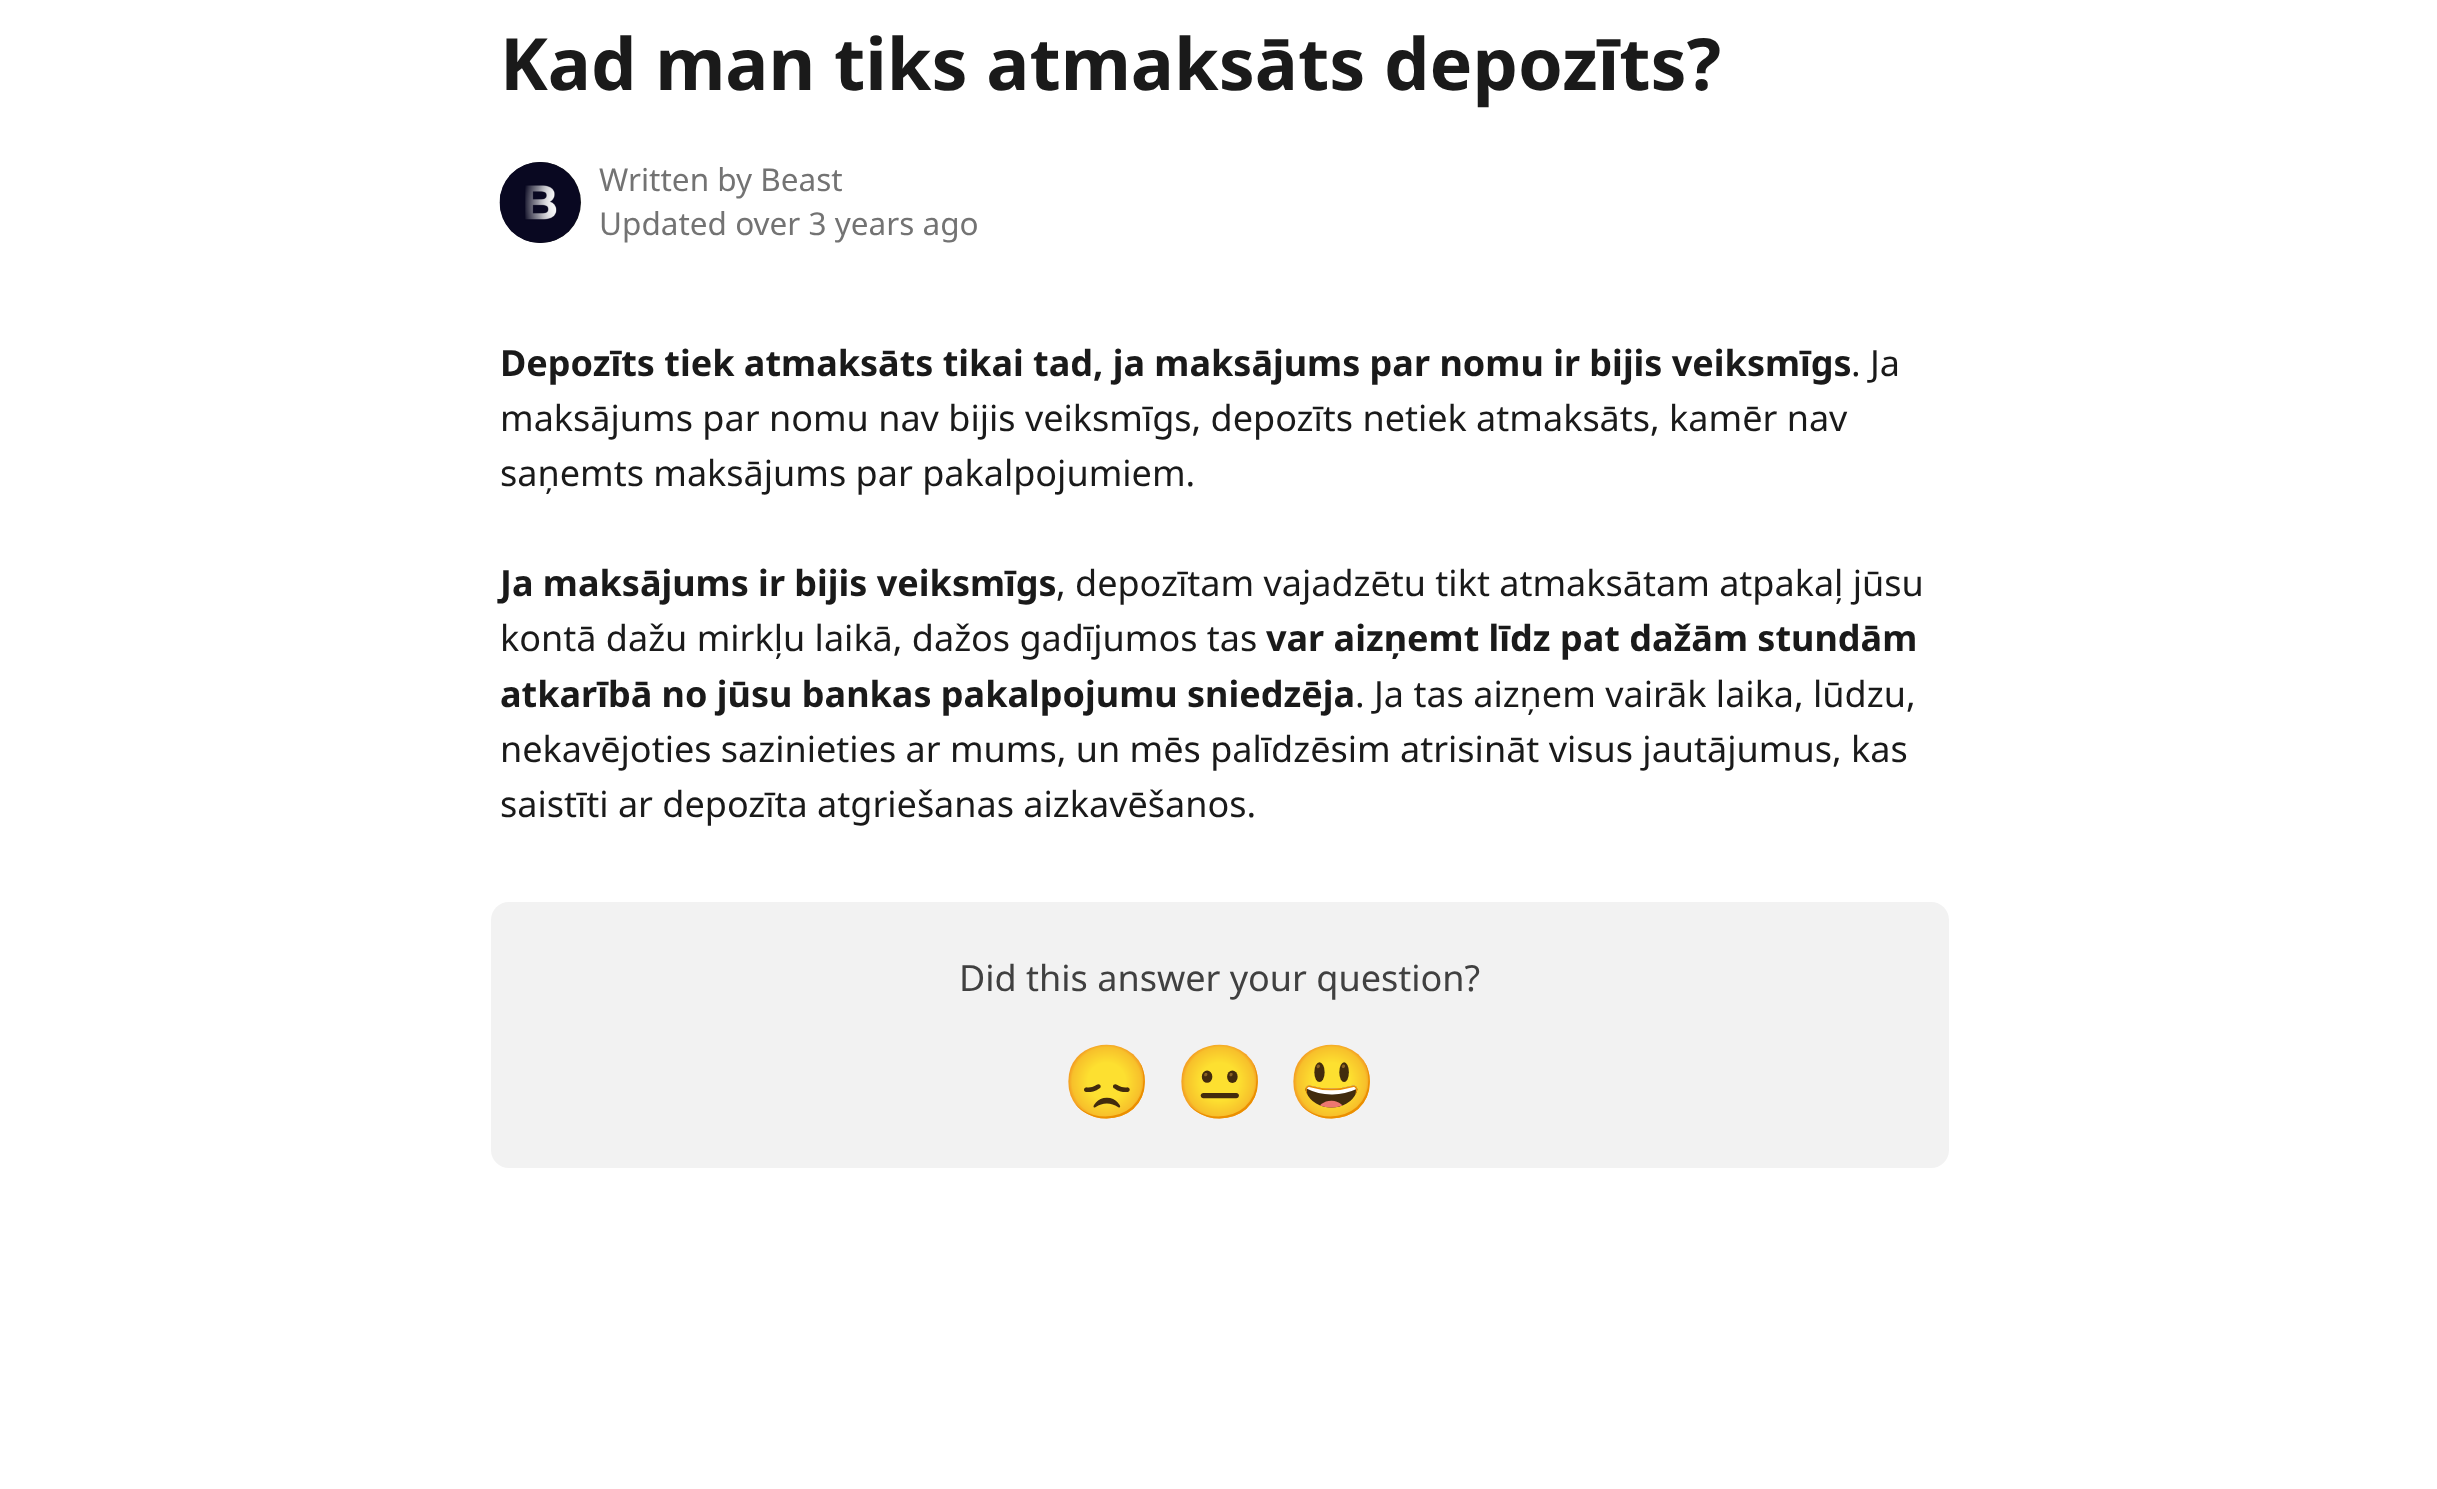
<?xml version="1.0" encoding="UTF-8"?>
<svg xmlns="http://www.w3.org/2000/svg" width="2437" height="1489">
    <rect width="100%" height="100%" fill="#FFFFFF"/>
    <text x="500" y="90" font-family="Noto Sans" font-size="72" font-weight="700" fill="#1A1A1A">Kad man tiks atmaksāts depozīts?</text>
    <circle cx="540.5" cy="202.5" r="40.5" fill="#212121"/>
    <image x="499" y="162" width="82" height="81" href="img_01.png"/>
    <text font-family="Noto Sans" font-size="31.5" fill="#737373">
        <tspan x="599" y="191">Written by Beast</tspan>
        <tspan x="599" y="235">Updated over 3 years ago</tspan>
    </text>
    <text x="500" y="376" font-family="Noto Sans" font-size="36" font-weight="700" fill="#1A1A1A">Depozīts tiek atmaksāts tikai tad, ja maksājums par nomu ir bijis veiksmīgs</text>
    <text x="1851" y="376" font-family="Noto Sans" font-size="36" fill="#1A1A1A">. Ja</text>
    <text font-family="Noto Sans" font-size="36" fill="#1A1A1A">
        <tspan x="500" y="431">maksājums par nomu nav bijis veiksmīgs, depozīts netiek atmaksāts, kamēr nav</tspan>
        <tspan x="500" y="486">saņemts maksājums par pakalpojumiem.</tspan>
    </text>
    <text x="500" y="596" font-family="Noto Sans" font-size="36" font-weight="700" fill="#1A1A1A">Ja maksājums ir bijis veiksmīgs</text>
    <text x="1056" y="596" font-family="Noto Sans" font-size="36" fill="#1A1A1A">, depozītam vajadzētu tikt atmaksātam atpakaļ jūsu</text>
    <text x="500" y="651" font-family="Noto Sans" font-size="36" fill="#1A1A1A">kontā dažu mirkļu laikā, dažos gadījumos tas</text>
    <text x="1266" y="651" font-family="Noto Sans" font-size="36" font-weight="700" fill="#1A1A1A">var aizņemt līdz pat dažām stundām</text>
    <text x="500" y="707" font-family="Noto Sans" font-size="36" font-weight="700" fill="#1A1A1A">atkarībā no jūsu bankas pakalpojumu sniedzēja</text>
    <text x="1355" y="707" font-family="Noto Sans" font-size="36" fill="#1A1A1A">. Ja tas aizņem vairāk laika, lūdzu,</text>
    <text font-family="Noto Sans" font-size="36" fill="#1A1A1A">
        <tspan x="500" y="762">nekavējoties sazinieties ar mums, un mēs palīdzēsim atrisināt visus jautājumus, kas</tspan>
        <tspan x="500" y="817">saistīti ar depozīta atgriešanas aizkavēšanos.</tspan>
    </text>
    <rect x="491" y="902" width="1458" height="266" rx="18" fill="#F2F2F2"/>
    <text x="959" y="991" font-family="Noto Sans" font-size="36" fill="#404040">Did this answer your question?</text>
    <text x="1062" y="1107" font-family="Noto Color Emoji" font-size="72" fill="#404040">😞</text>
    <text x="1175" y="1107" font-family="Noto Color Emoji" font-size="72" fill="#404040">😐</text>
    <text x="1287" y="1107" font-family="Noto Color Emoji" font-size="72" fill="#404040">😃</text>
</svg>
